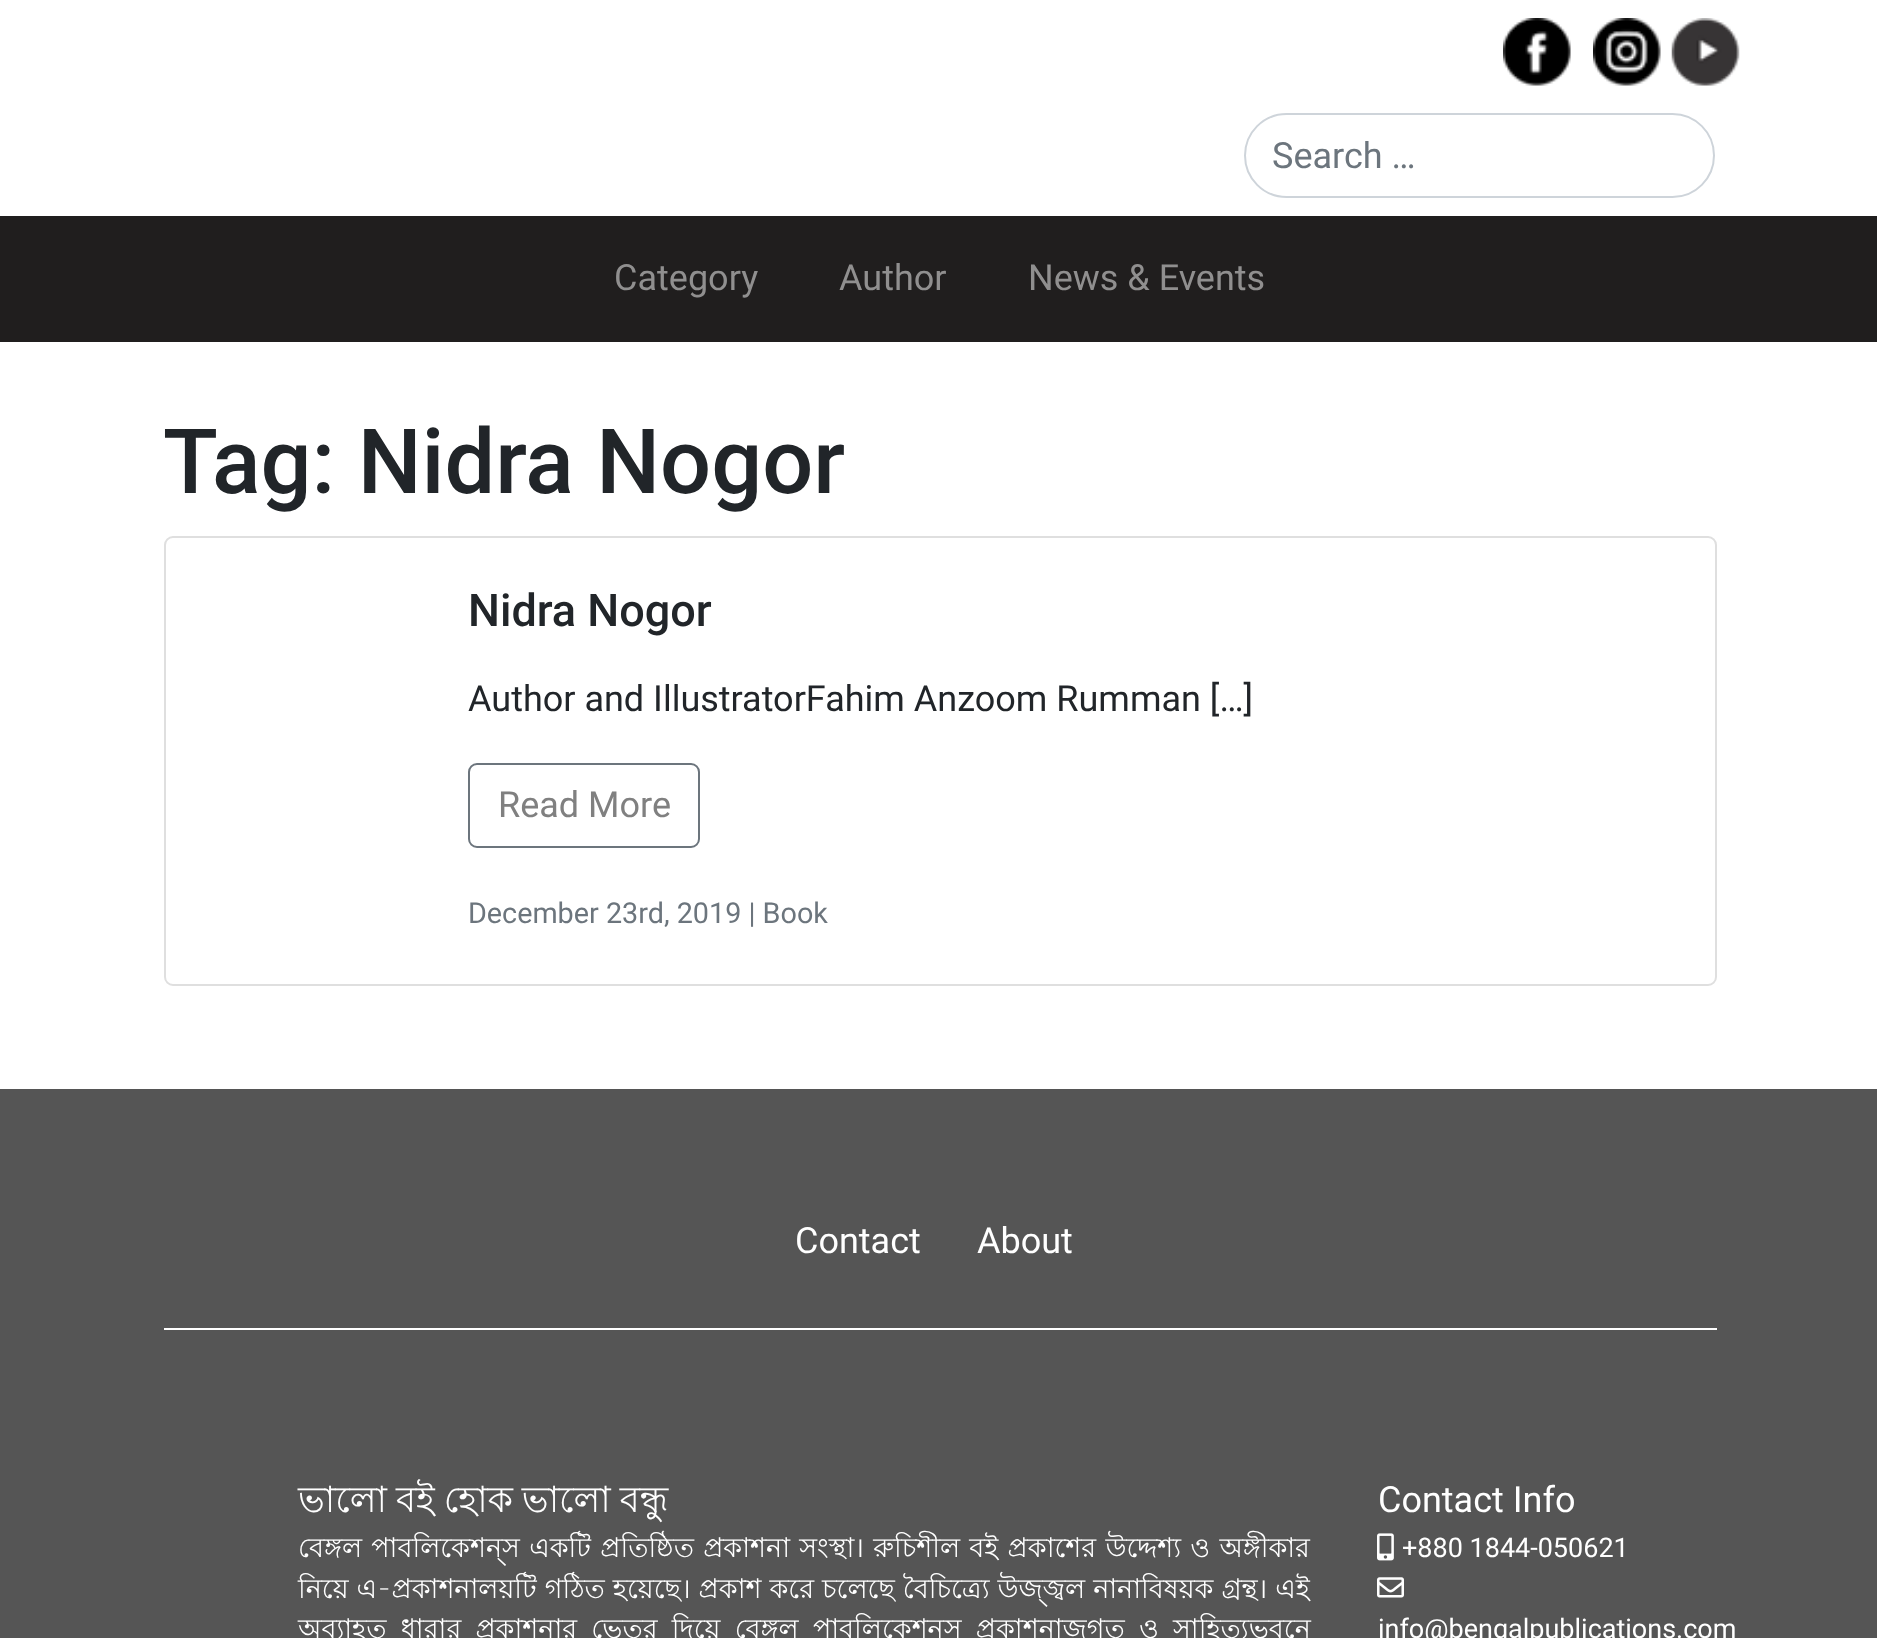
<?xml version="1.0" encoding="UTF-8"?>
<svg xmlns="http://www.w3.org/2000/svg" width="1877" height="1638">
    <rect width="100%" height="100%" fill="#FFFFFF"/>
    <image x="1503" y="18" width="68" height="68" href="img_01.png"/>
    <image x="1593" y="18" width="68" height="68" href="img_02.png"/>
    <image x="1671" y="18" width="69" height="68" href="img_03.png"/>
    <rect x="1245" y="114" width="469" height="83" rx="41.5" fill="none" stroke="#CED4DA" stroke-width="2"/>
    <text x="1272" y="168" font-family="Roboto" font-size="36" fill="#6C757D">Search …</text>
    <rect x="0" y="216" width="1877" height="126" fill="#201E1E"/>
    <text x="614" y="290" font-family="Roboto" font-size="36" fill="#908F8F">Category</text>
    <text x="839" y="290" font-family="Roboto" font-size="36" fill="#908F8F">Author</text>
    <text x="1028" y="290" font-family="Roboto" font-size="36" fill="#908F8F">News &amp; Events</text>
    <text x="163" y="493" font-family="Roboto" font-size="90" font-weight="500" fill="#212529">Tag: Nidra Nogor</text>
    <rect x="165" y="537" width="1551" height="448" rx="8" fill="none" stroke="#DFDFDF" stroke-width="2"/>
    <text x="468" y="626" font-family="Roboto" font-size="45" font-weight="500" fill="#212529">Nidra Nogor</text>
    <text x="468" y="711" font-family="Roboto" font-size="36" fill="#212529">Author and IllustratorFahim Anzoom Rumman […]</text>
    <rect x="469" y="764" width="230" height="83" rx="8" fill="none" stroke="#6C757D" stroke-width="2"/>
    <text x="498" y="817" font-family="Roboto" font-size="36" fill="#808080">Read More</text>
    <text x="468" y="923" font-family="Roboto" font-size="28.75" fill="#6C757D">December 23rd, 2019 | Book</text>
    <rect x="0" y="1089" width="1877" height="549" fill="#555555"/>
    <text x="795" y="1253" font-family="Roboto" font-size="36" fill="#FFFFFF">Contact</text>
    <text x="977" y="1253" font-family="Roboto" font-size="36" fill="#FFFFFF">About</text>
    <rect x="164" y="1328" width="1553" height="2" fill="#FFFFFF"/>
    <text x="298" y="1512" word-spacing="-1" font-family="Lohit Bengali" font-size="36" fill="#FFFFFF">ভালো বই হোক ভালো বন্ধু</text>
    <text font-family="Lohit Bengali" font-size="27" fill="#FFFFFF">
        <tspan x="298" y="1557" word-spacing="1.75">বেঙ্গল পাবলিকেশন্‌স একটি প্রতিষ্ঠিত প্রকাশনা সংস্থা। রুচিশীল বই প্রকাশের উদ্দেশ্য ও অঙ্গীকার</tspan>
        <tspan x="298" y="1598" word-spacing="0.5">নিয়ে এ-প্রকাশনালয়টি গঠিত হয়েছে। প্রকাশ করে চলেছে বৈচিত্র্যে উজ্জ্বল নানাবিষয়ক গ্রন্থ। এই</tspan>
        <tspan x="298" y="1638" word-spacing="6.75">অব্যাহত ধারার প্রকাশনার ভেতর দিয়ে বেঙ্গল পাবলিকেশন্‌স প্রকাশনাজগত ও সাহিত্যভুবনে</tspan>
    </text>
    <text x="1378" y="1512" font-family="Roboto" font-size="36" fill="#FFFFFF">Contact Info</text>
    <image x="1377" y="1533" width="17" height="28" href="img_04.png"/>
    <text x="1402" y="1557" font-family="Roboto" font-size="27" fill="#FFFFFF">+880 1844-050621</text>
    <image x="1377" y="1577" width="27" height="21" href="img_05.png"/>
    <text x="1378" y="1638" font-family="Roboto" font-size="27" fill="#FFFFFF">info@bengalpublications.com</text>
</svg>
